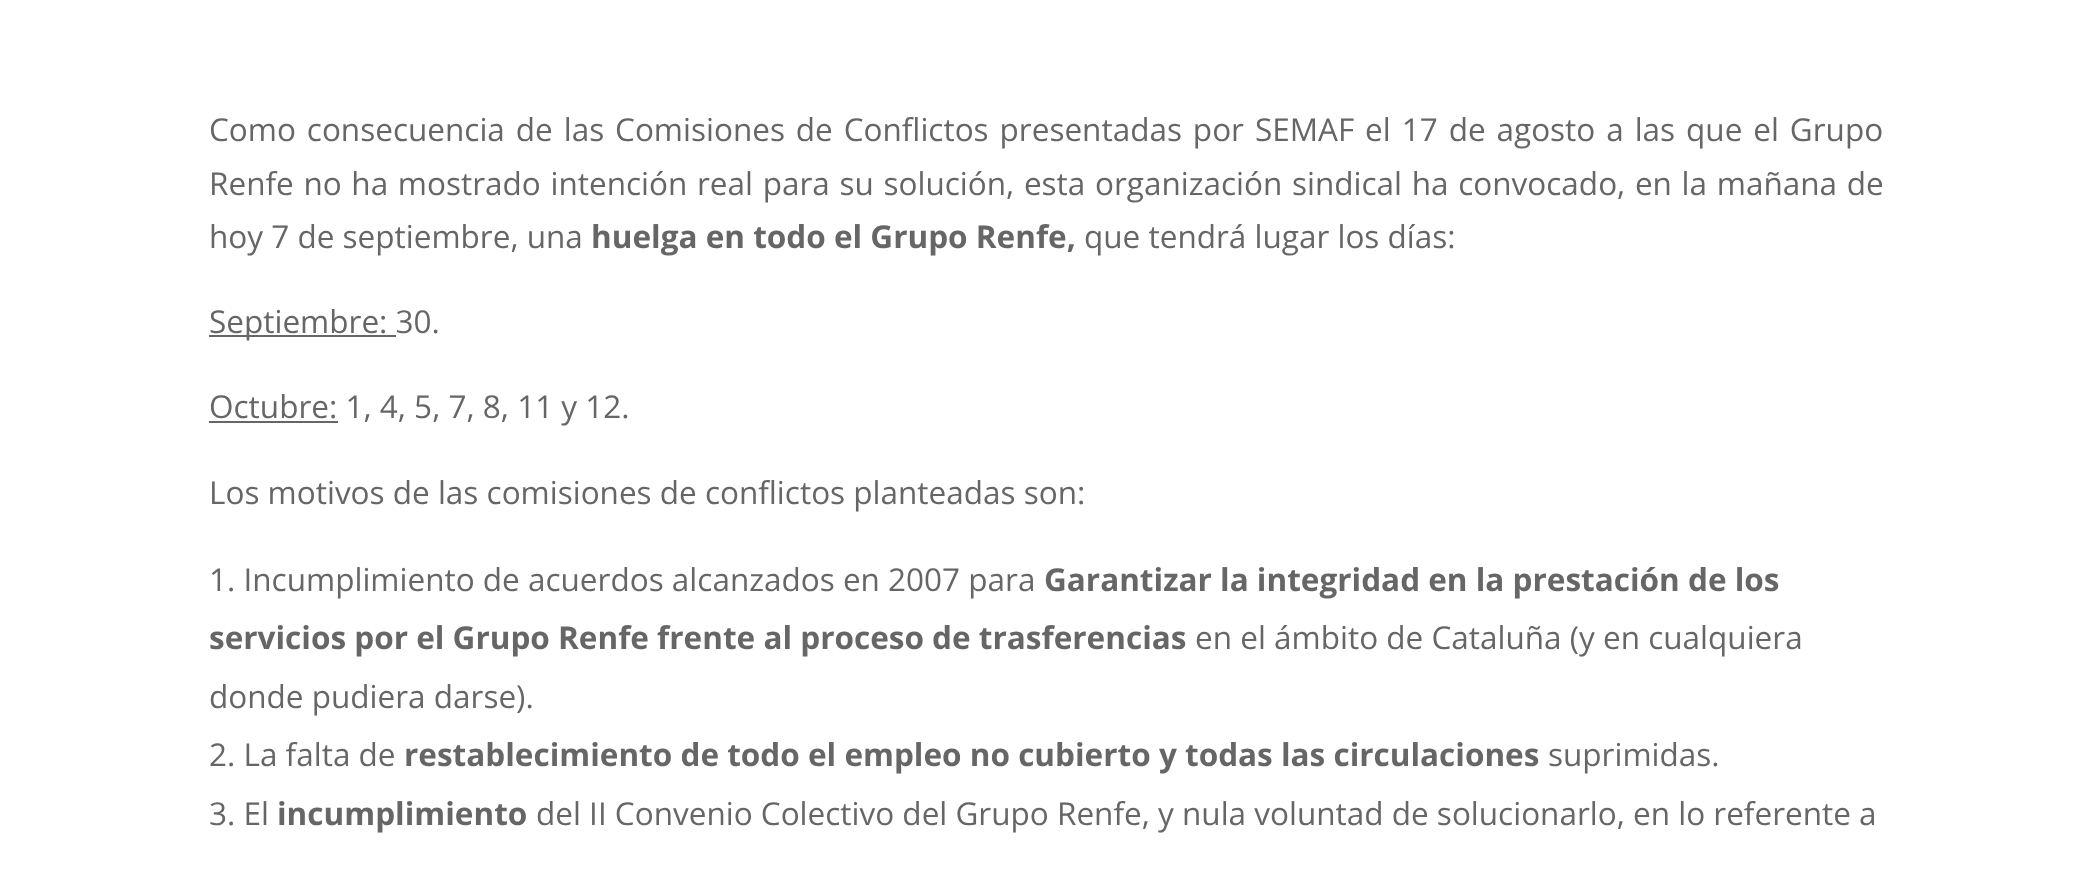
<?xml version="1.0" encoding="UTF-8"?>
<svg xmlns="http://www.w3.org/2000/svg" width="2091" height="869">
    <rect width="100%" height="100%" fill="#FFFFFF"/>
    <text font-family="Open Sans" font-size="31.5" fill="#666666">
        <tspan x="209" y="141" word-spacing="2.75">Como consecuencia de las Comisiones de Conflictos presentadas por SEMAF el 17 de agosto a las que el Grupo</tspan>
        <tspan x="209" y="195" word-spacing="1.5">Renfe no ha mostrado intención real para su solución, esta organización sindical ha convocado, en la mañana de</tspan>
        <tspan x="209" y="248">hoy 7 de septiembre, una</tspan>
    </text>
    <text x="591" y="248" font-family="Open Sans" font-size="31.5" font-weight="700" fill="#666666">huelga en todo el Grupo Renfe,</text>
    <text x="1084" y="248" font-family="Open Sans" font-size="31.5" fill="#666666">que tendrá lugar los días:</text>
    <rect x="209" y="335" width="187" height="2" fill="#666666"/>
    <text x="209" y="333" font-family="Open Sans" font-size="31.5" fill="#666666">Septiembre: 30.</text>
    <rect x="209" y="421" width="129" height="2" fill="#666666"/>
    <text x="209" y="418" font-family="Open Sans" font-size="31.5" fill="#666666">Octubre: 1, 4, 5, 7, 8, 11 y 12.</text>
    <text x="209" y="504" font-family="Open Sans" font-size="31.5" fill="#666666">Los motivos de las comisiones de conflictos planteadas son:</text>
    <text x="209" y="591" font-family="Open Sans" font-size="31.5" fill="#666666">1. Incumplimiento de acuerdos alcanzados en 2007 para</text>
    <text x="1044" y="591" font-family="Open Sans" font-size="31.5" font-weight="700" fill="#666666">Garantizar la integridad en la prestación de los</text>
    <text x="209" y="649" font-family="Open Sans" font-size="31.5" font-weight="700" fill="#666666">servicios por el Grupo Renfe frente al proceso de trasferencias</text>
    <text x="1195" y="649" font-family="Open Sans" font-size="31.5" fill="#666666">en el ámbito de Cataluña (y en cualquiera</text>
    <text font-family="Open Sans" font-size="31.5" fill="#666666">
        <tspan x="209" y="708">donde pudiera darse).</tspan>
        <tspan x="209" y="766">2. La falta de</tspan>
    </text>
    <text x="404" y="766" font-family="Open Sans" font-size="31.5" font-weight="700" fill="#666666">restablecimiento de todo el empleo no cubierto y todas las circulaciones</text>
    <text x="1548" y="766" font-family="Open Sans" font-size="31.5" fill="#666666">suprimidas.</text>
    <text x="209" y="825" font-family="Open Sans" font-size="31.5" fill="#666666">3. El</text>
    <text x="277" y="825" font-family="Open Sans" font-size="31.5" font-weight="700" fill="#666666">incumplimiento</text>
    <text x="536" y="825" font-family="Open Sans" font-size="31.5" fill="#666666">del II Convenio Colectivo del Grupo Renfe, y nula voluntad de solucionarlo, en lo referente a</text>
</svg>
